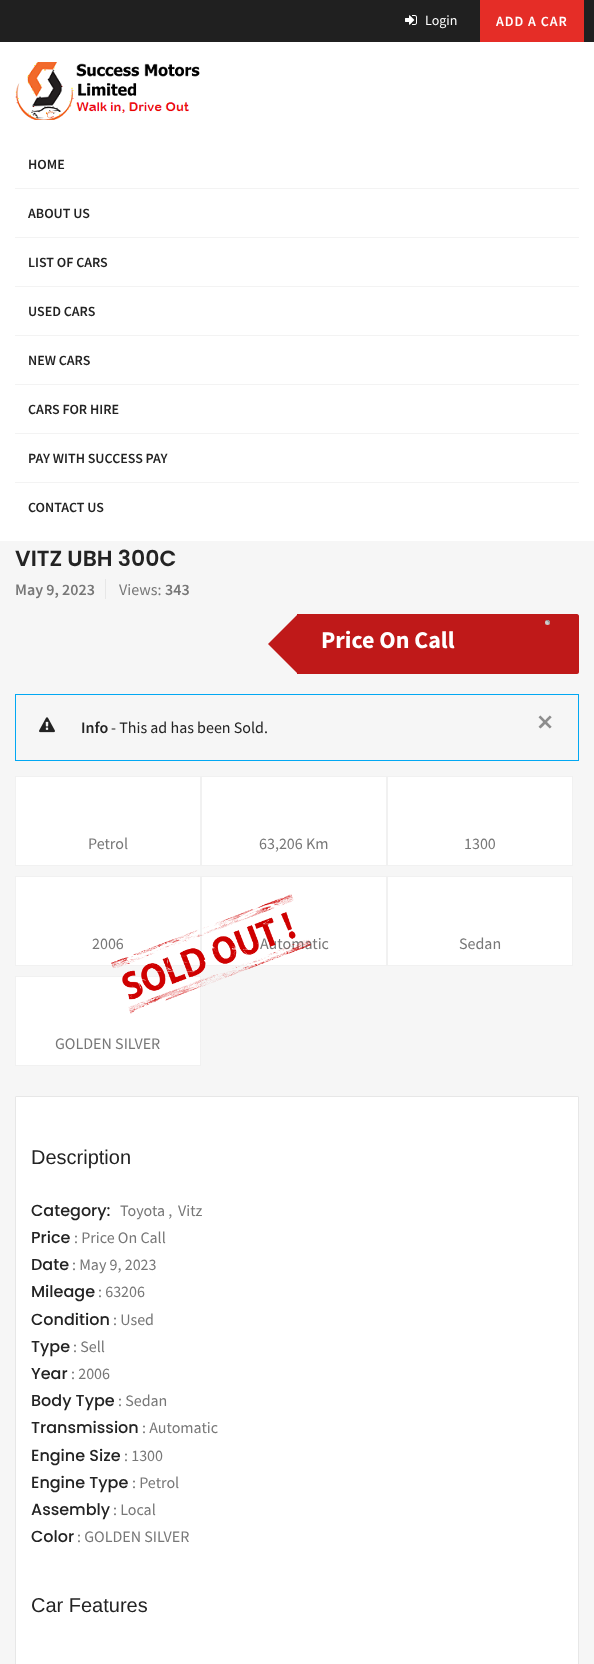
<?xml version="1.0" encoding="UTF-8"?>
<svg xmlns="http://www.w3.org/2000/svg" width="594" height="1664">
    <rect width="100%" height="100%" fill="#FFFFFF"/>
    <rect x="0" y="0" width="594" height="42" fill="#202020"/>
    <image x="405" y="15" width="12" height="10" href="img_01.png"/>
    <text x="425" y="25" font-family="Source Sans Pro" font-size="14" fill="#FFFFFF">Login</text>
    <rect x="480" y="0" width="104" height="42" fill="#E52D27"/>
    <text x="496" y="26" font-family="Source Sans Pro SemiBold" font-size="14" font-weight="600" letter-spacing="1" fill="#FFFFFF">ADD A CAR</text>
    <image x="15" y="62" width="185" height="58" href="img_02.png"/>
    <rect x="15" y="188" width="564" height="1" fill="#F3F3F3"/>
    <text x="28" y="169" font-family="Source Sans Pro SemiBold" font-size="14" font-weight="600" fill="#232323">HOME</text>
    <rect x="15" y="237" width="564" height="1" fill="#F3F3F3"/>
    <text x="28" y="218" font-family="Source Sans Pro SemiBold" font-size="14" font-weight="600" fill="#232323">ABOUT US</text>
    <rect x="15" y="286" width="564" height="1" fill="#F3F3F3"/>
    <text x="28" y="267" font-family="Source Sans Pro SemiBold" font-size="14" font-weight="600" fill="#232323">LIST OF CARS</text>
    <rect x="15" y="335" width="564" height="1" fill="#F3F3F3"/>
    <text x="28" y="316" font-family="Source Sans Pro SemiBold" font-size="14" font-weight="600" fill="#232323">USED CARS</text>
    <rect x="15" y="384" width="564" height="1" fill="#F3F3F3"/>
    <text x="28" y="365" font-family="Source Sans Pro SemiBold" font-size="14" font-weight="600" fill="#232323">NEW CARS</text>
    <rect x="15" y="433" width="564" height="1" fill="#F3F3F3"/>
    <text x="28" y="414" font-family="Source Sans Pro SemiBold" font-size="14" font-weight="600" fill="#232323">CARS FOR HIRE</text>
    <rect x="15" y="482" width="564" height="1" fill="#F3F3F3"/>
    <text x="28" y="463" font-family="Source Sans Pro SemiBold" font-size="14" font-weight="600" fill="#232323">PAY WITH SUCCESS PAY</text>
    <text x="28" y="512" font-family="Source Sans Pro SemiBold" font-size="14" font-weight="600" fill="#232323">CONTACT US</text>
    <rect x="0" y="541" width="594" height="1123" fill="#F6F6F6"/>
    <text x="15" y="566" font-family="Poppins" font-size="22" font-weight="600" fill="#232323">VITZ UBH 300C</text>
    <rect x="105" y="579" width="1" height="20" fill="#E7E7E7"/>
    <text x="15" y="595" font-family="Source Sans Pro SemiBold" font-size="16" font-weight="600" fill="#777777">May 9, 2023</text>
    <text x="119" y="595" font-family="Source Sans Pro" font-size="16" fill="#777777">Views:</text>
    <text x="165" y="595" font-family="Source Sans Pro SemiBold" font-size="16" font-weight="600" fill="#777777">343</text>
    <path d="M 297 614 H 577 C 578 614 579 615 579 616 V 672 C 579 673 578 674 577 674 H 297 Z" fill="#BF1919"/>
    <path d="M 298 614 V 674 L 268 644 Z" fill="#BF1919"/>
    <circle cx="547.5" cy="622.5" r="2.5" fill="#CECECE"/>
    <path d="M 546 621 C 548.5 621 549.5 623 548.5 624.5 C 552 623 548 618 545.5 621 Z" fill="#8E8E8E"/>
    <text x="321" y="648" font-family="Source Sans Pro" font-size="24" font-weight="700" fill="#FFFFFF">Price On Call</text>
    <rect x="15.5" y="694.5" width="563" height="66" fill="none" stroke="#02A8F3"/>
    <image x="39" y="717" width="16" height="16" href="img_03.png"/>
    <text x="81" y="733" font-family="Source Sans Pro SemiBold" font-size="16" font-weight="600" fill="#232323">Info</text>
    <text x="111" y="733" font-family="Source Sans Pro" font-size="16" fill="#232323">- This ad has been Sold.</text>
    <text x="536" y="730" font-family="DejaVu Sans" font-size="21" font-weight="700" fill="#8D8D8D">✕</text>
    <rect x="15.5" y="776.5" width="185" height="89" fill="#FFFFFF" stroke="#F1F1F1"/>
    <text x="88" y="849" font-family="Source Sans Pro" font-size="16" fill="#777777">Petrol</text>
    <rect x="201.5" y="776.5" width="185" height="89" fill="#FFFFFF" stroke="#F1F1F1"/>
    <text x="259" y="849" font-family="Source Sans Pro" font-size="16" fill="#777777">63,206 Km</text>
    <rect x="387.5" y="776.5" width="185" height="89" fill="#FFFFFF" stroke="#F1F1F1"/>
    <text x="464" y="849" font-family="Source Sans Pro" font-size="16" fill="#777777">1300</text>
    <rect x="15.5" y="876.5" width="185" height="89" fill="#FFFFFF" stroke="#F1F1F1"/>
    <text x="92" y="949" font-family="Source Sans Pro" font-size="16" fill="#777777">2006</text>
    <rect x="201.5" y="876.5" width="185" height="89" fill="#FFFFFF" stroke="#F1F1F1"/>
    <text x="260" y="949" font-family="Source Sans Pro" font-size="16" fill="#777777">Automatic</text>
    <rect x="387.5" y="876.5" width="185" height="89" fill="#FFFFFF" stroke="#F1F1F1"/>
    <text x="459" y="949" font-family="Source Sans Pro" font-size="16" fill="#777777">Sedan</text>
    <rect x="15.5" y="976.5" width="185" height="89" fill="#FFFFFF" stroke="#F1F1F1"/>
    <text x="55" y="1049" font-family="Source Sans Pro" font-size="16" fill="#777777">GOLDEN SILVER</text>
    <rect x="15.5" y="1096.5" width="563" height="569" rx="0.5" fill="#FFFFFF" stroke="#E7E7E7"/>
    <image x="111" y="894" width="200" height="120" href="img_04.png"/>
    <text x="31" y="1164" font-family="Liberation Sans" font-size="20" fill="#232323">Description</text>
    <text x="31" y="1216" font-family="Poppins" font-size="16" font-weight="500" fill="#232323">Category:</text>
    <text x="120" y="1216" font-family="Source Sans Pro" font-size="16" fill="#777777">Toyota ,</text>
    <text x="178" y="1216" font-family="Source Sans Pro" font-size="16" fill="#777777">Vitz</text>
    <text x="31" y="1243" font-family="Poppins" font-size="16" font-weight="500" fill="#232323">Price</text>
    <text x="74" y="1243" font-family="Source Sans Pro" font-size="16" fill="#777777">: Price On Call</text>
    <text x="31" y="1270" font-family="Poppins" font-size="16" font-weight="500" fill="#232323">Date</text>
    <text x="72" y="1270" font-family="Source Sans Pro" font-size="16" fill="#777777">: May 9, 2023</text>
    <text x="31" y="1297" font-family="Poppins" font-size="16" font-weight="500" fill="#232323">Mileage</text>
    <text x="98" y="1297" font-family="Source Sans Pro" font-size="16" fill="#777777">: 63206</text>
    <text x="31" y="1325" font-family="Poppins" font-size="16" font-weight="500" fill="#232323">Condition</text>
    <text x="113" y="1325" font-family="Source Sans Pro" font-size="16" fill="#777777">: Used</text>
    <text x="31" y="1352" font-family="Poppins" font-size="16" font-weight="500" fill="#232323">Type</text>
    <text x="73" y="1352" font-family="Source Sans Pro" font-size="16" fill="#777777">: Sell</text>
    <text x="31" y="1379" font-family="Poppins" font-size="16" font-weight="500" fill="#232323">Year</text>
    <text x="71" y="1379" font-family="Source Sans Pro" font-size="16" fill="#777777">: 2006</text>
    <text x="31" y="1406" font-family="Poppins" font-size="16" font-weight="500" fill="#232323">Body Type</text>
    <text x="118" y="1406" font-family="Source Sans Pro" font-size="16" fill="#777777">: Sedan</text>
    <text x="31" y="1433" font-family="Poppins" font-size="16" font-weight="500" fill="#232323">Transmission</text>
    <text x="142" y="1433" font-family="Source Sans Pro" font-size="16" fill="#777777">: Automatic</text>
    <text x="31" y="1461" font-family="Poppins" font-size="16" font-weight="500" fill="#232323">Engine Size</text>
    <text x="124" y="1461" font-family="Source Sans Pro" font-size="16" fill="#777777">: 1300</text>
    <text x="31" y="1488" font-family="Poppins" font-size="16" font-weight="500" fill="#232323">Engine Type</text>
    <text x="132" y="1488" font-family="Source Sans Pro" font-size="16" fill="#777777">: Petrol</text>
    <text x="31" y="1515" font-family="Poppins" font-size="16" font-weight="500" fill="#232323">Assembly</text>
    <text x="113" y="1515" font-family="Source Sans Pro" font-size="16" fill="#777777">: Local</text>
    <text x="31" y="1542" font-family="Poppins" font-size="16" font-weight="500" fill="#232323">Color</text>
    <text x="77" y="1542" font-family="Source Sans Pro" font-size="16" fill="#777777">: GOLDEN SILVER</text>
    <text x="31" y="1612" font-family="Liberation Sans" font-size="20" fill="#232323">Car Features</text>
</svg>
